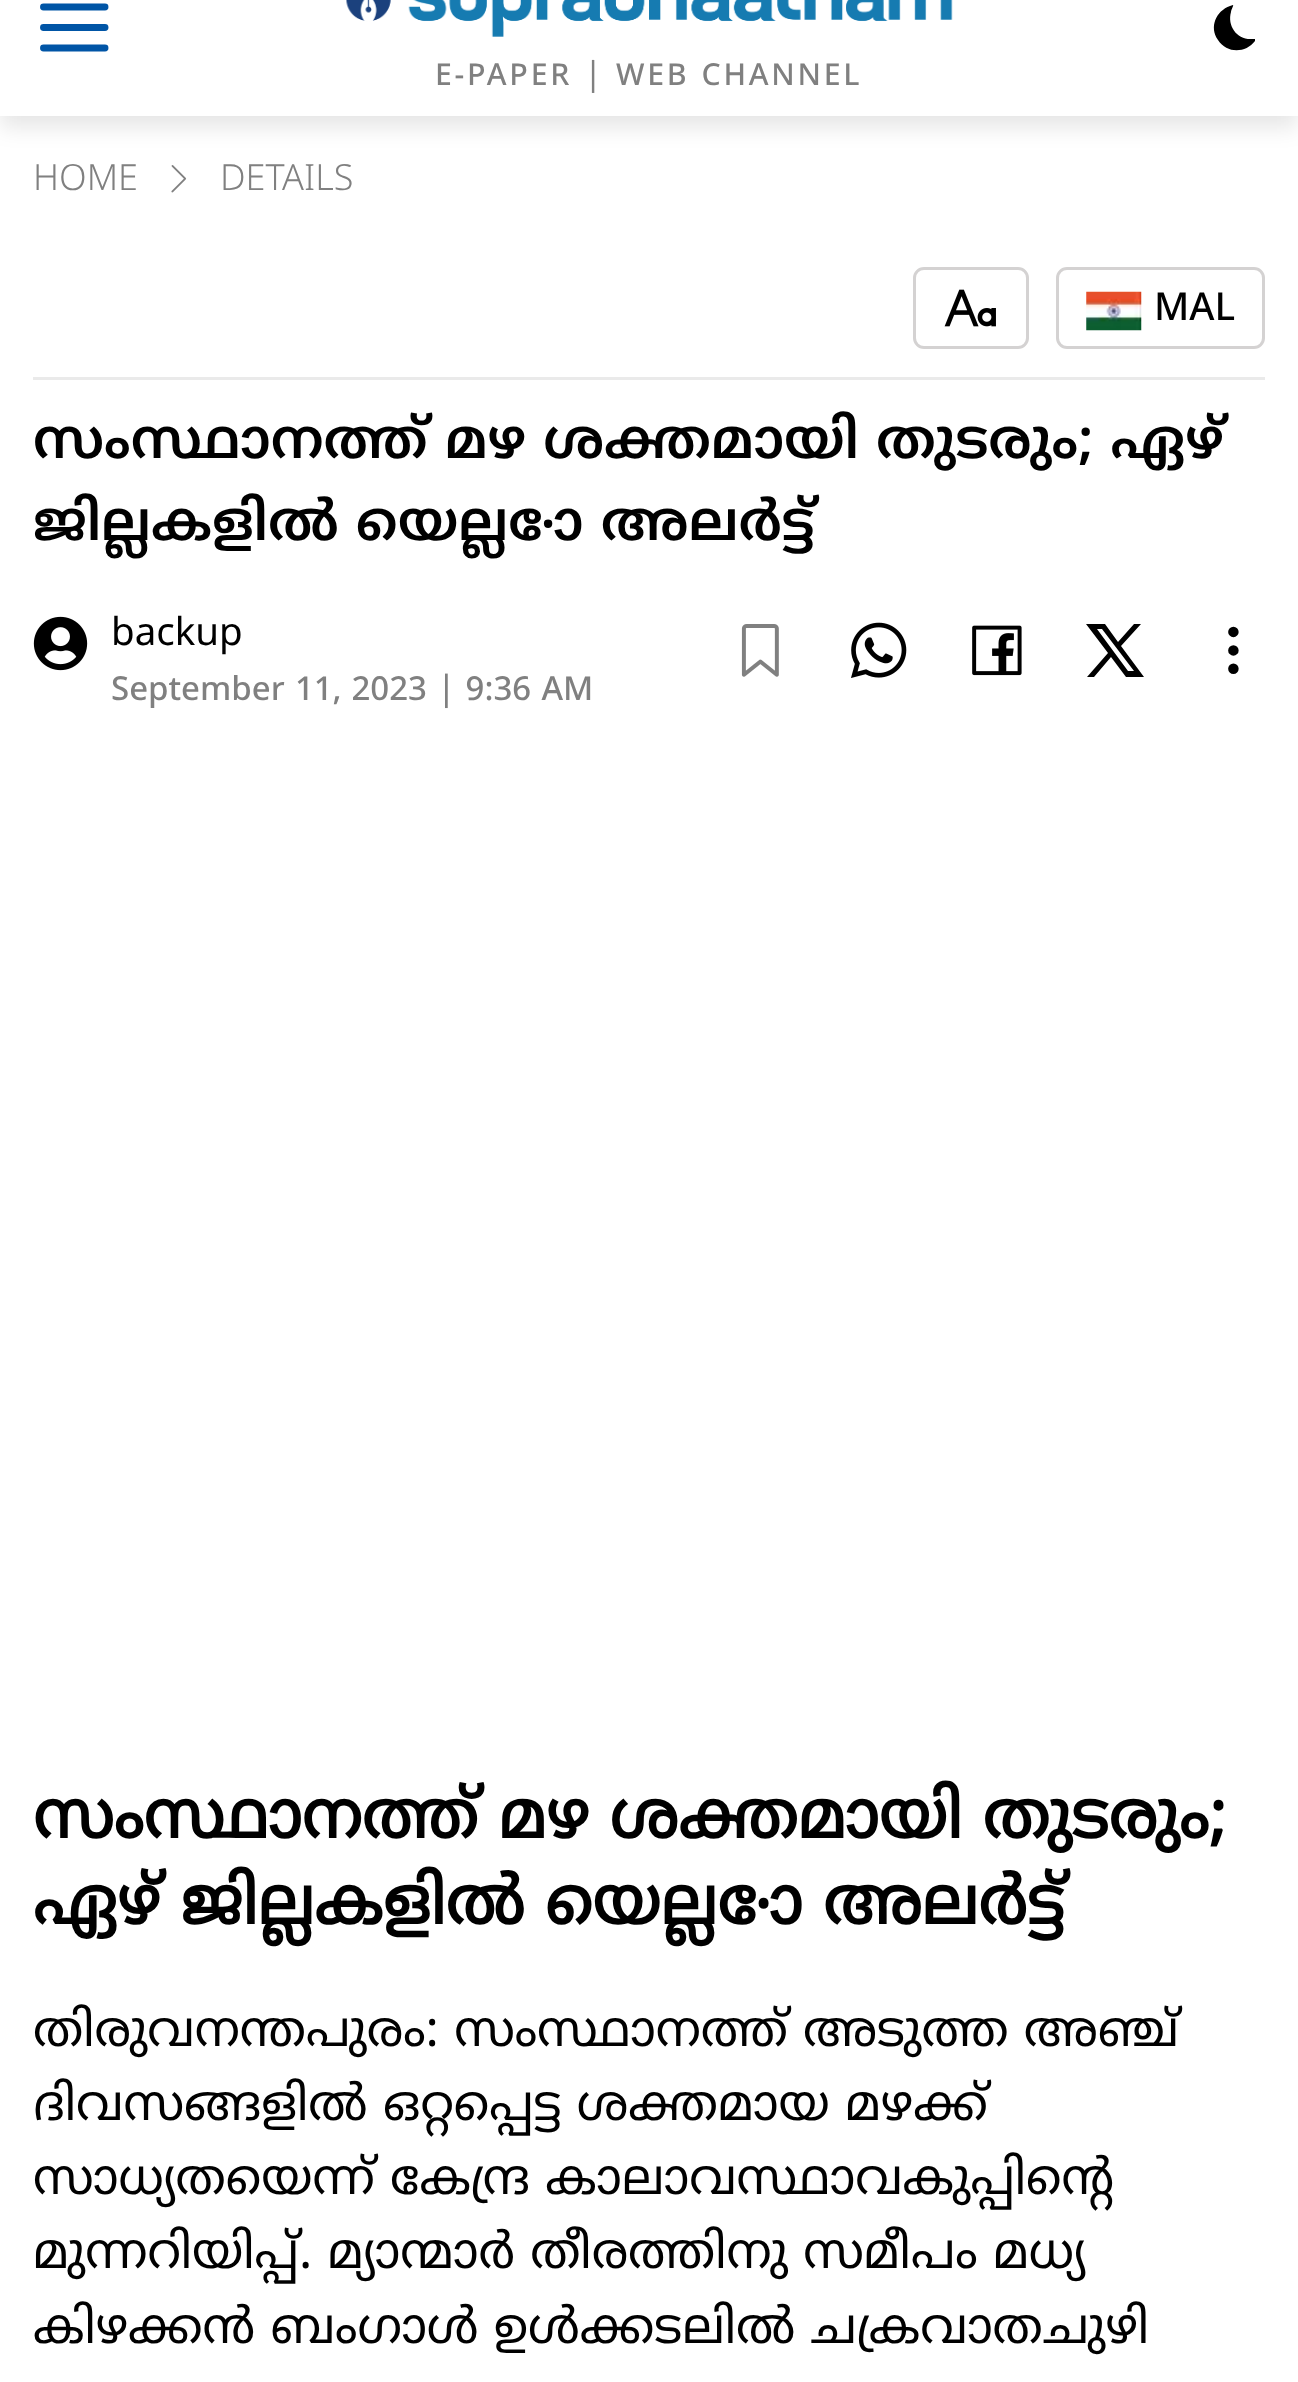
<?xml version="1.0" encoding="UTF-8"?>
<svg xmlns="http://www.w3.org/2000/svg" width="1298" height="2382">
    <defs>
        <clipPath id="clip1"><path d="M 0 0 H 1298 V 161 H 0 Z M 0 -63 H 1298 V 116 H 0 Z" clip-rule="evenodd"/></clipPath>
        <filter id="blur1" x="-50%" y="-200%" width="200%" height="500%"><feGaussianBlur stdDeviation="11"/></filter>
        <clipPath id="clip2"><rect x="33" y="1716" width="1232" height="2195"/></clipPath>
    </defs>
    <rect width="100%" height="100%" fill="#FFFFFF"/>
    <g clip-path="url(#clip1)">
        <rect x="0" y="-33" width="1298" height="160" fill="#000000" fill-opacity="0.1" filter="url(#blur1)"/>
    </g>
    <path d="M 43.5 27.5 H 105" fill="none" stroke="#0055A6" stroke-width="6.9" stroke-linecap="round" stroke-linejoin="round"/>
    <path d="M 43.5 7 H 105" fill="none" stroke="#0055A6" stroke-width="6.9" stroke-linecap="round" stroke-linejoin="round"/>
    <path d="M 43.5 48 H 105" fill="none" stroke="#0055A6" stroke-width="6.9" stroke-linecap="round" stroke-linejoin="round"/>
    <path d="M 1252 39 C 1237 40 1227 26 1231 12 C 1231 10 1234 5 1233 5 L 1230 6 C 1216 11 1209 27 1218 40 C 1227 54 1246 53 1255 41 V 39 Z" fill="#000000"/>
    <image x="346" y="0" width="607" height="37" href="img_01.png"/>
    <text x="435" y="85" font-family="Noto Sans Malayalam" font-size="30.25" font-weight="500" letter-spacing="2.75" fill="#808080">E-PAPER</text>
    <text x="584" y="85" font-family="Noto Sans" font-size="33" letter-spacing="2.75" fill="#808080">|</text>
    <text x="616" y="85" font-family="Noto Sans Malayalam" font-size="30.25" font-weight="500" letter-spacing="2.75" fill="#808080">WEB CHANNEL</text>
    <text x="33" y="190" font-family="Noto Sans Malayalam" font-size="36" font-weight="300" fill="#808080">HOME</text>
    <image x="171" y="165" width="16" height="28" href="img_02.png"/>
    <text x="220" y="190" font-family="Noto Sans Malayalam" font-size="36" font-weight="300" fill="#808080">DETAILS</text>
    <rect x="33" y="377" width="1232" height="3" fill="#EAEAEA"/>
    <rect x="914.5" y="268.5" width="113" height="79" rx="9.5" fill="none" stroke="#D4D2D2" stroke-width="3"/>
    <image x="944" y="289" width="52" height="38" href="img_03.png"/>
    <rect x="1057.5" y="268.5" width="206" height="79" rx="9.5" fill="none" stroke="#D4D2D2" stroke-width="3"/>
    <image x="1086" y="291" width="56" height="40" href="img_04.png"/>
    <text x="1154" y="320" font-family="Noto Sans Malayalam" font-size="38.5" font-weight="500" fill="#000000">MAL</text>
    <text font-family="Noto Sans Malayalam" font-size="55" font-weight="600" fill="#000000">
        <tspan x="33" y="458">സംസ്ഥാനത്ത് മഴ ശക്തമായി തുടരും; ഏഴ്</tspan>
        <tspan x="33" y="540">ജില്ലകളില്‍ യെല്ലോ അലര്‍ട്ട്</tspan>
    </text>
    <image x="33" y="616" width="55" height="55" href="img_05.png"/>
    <text x="111" y="645" font-family="Noto Sans" font-size="38.5" fill="#000000">backup</text>
    <text x="111" y="700" font-family="Noto Sans Malayalam" font-size="33" font-weight="500" fill="#808080">September 11, 2023 | 9:36 AM</text>
    <image x="741" y="624" width="38" height="53" href="img_06.png"/>
    <image x="851" y="622" width="56" height="56" href="img_07.png"/>
    <image x="972" y="625" width="50" height="51" href="img_08.png"/>
    <path d="M 1105 624 H 1086 L 1108 653 L 1087 677 H 1094 L 1111 657 L 1126 677 H 1144 L 1121 646 L 1141 624 H 1134 L 1118 642 Z M 1128 671 L 1097 629 H 1102 L 1134 671 Z" fill="#000000"/>
    <circle cx="1233.4" cy="650.4" r="2.6" fill="none" stroke="#000000" stroke-width="5.3"/>
    <circle cx="1233.4" cy="631.9" r="2.6" fill="none" stroke="#000000" stroke-width="5.3"/>
    <circle cx="1233.4" cy="668.8" r="2.6" fill="none" stroke="#000000" stroke-width="5.3"/>
    <text font-family="Noto Sans Malayalam" font-size="66" font-weight="700" fill="#000000">
        <tspan x="33" y="1838">സംസ്ഥാനത്ത് മഴ ശക്തമായി തുടരും;</tspan>
        <tspan x="33" y="1924">ഏഴ് ജില്ലകളില്‍ യെല്ലോ അലര്‍ട്ട്</tspan>
    </text>
    <g clip-path="url(#clip2)">
        <text font-family="Noto Sans Malayalam" font-size="49.5" fill="#000000">
            <tspan x="33" y="2046">തിരുവനന്തപുരം: സംസ്ഥാനത്ത് അടുത്ത അഞ്ച്</tspan>
            <tspan x="33" y="2120">ദിവസങ്ങളില്‍ ഒറ്റപ്പെട്ട ശക്തമായ മഴക്ക്</tspan>
        </text>
    </g>
    <text x="33" y="2194" font-family="Noto Sans Malayalam" font-size="49.5" fill="#000000">സാധ്യതയെന്ന് കേന്ദ്ര കാലാവസ്ഥാവകുപ്പിന്റെ</text>
    <g clip-path="url(#clip2)">
        <text font-family="Noto Sans Malayalam" font-size="49.5" fill="#000000">
            <tspan x="33" y="2268">മുന്നറിയിപ്പ്. മ്യാന്മാര്‍ തീരത്തിനു സമീപം മധ്യ</tspan>
            <tspan x="33" y="2343">കിഴക്കന്‍ ബംഗാള്‍ ഉള്‍ക്കടലില്‍ ചക്രവാതചുഴി</tspan>
        </text>
    </g>
</svg>
